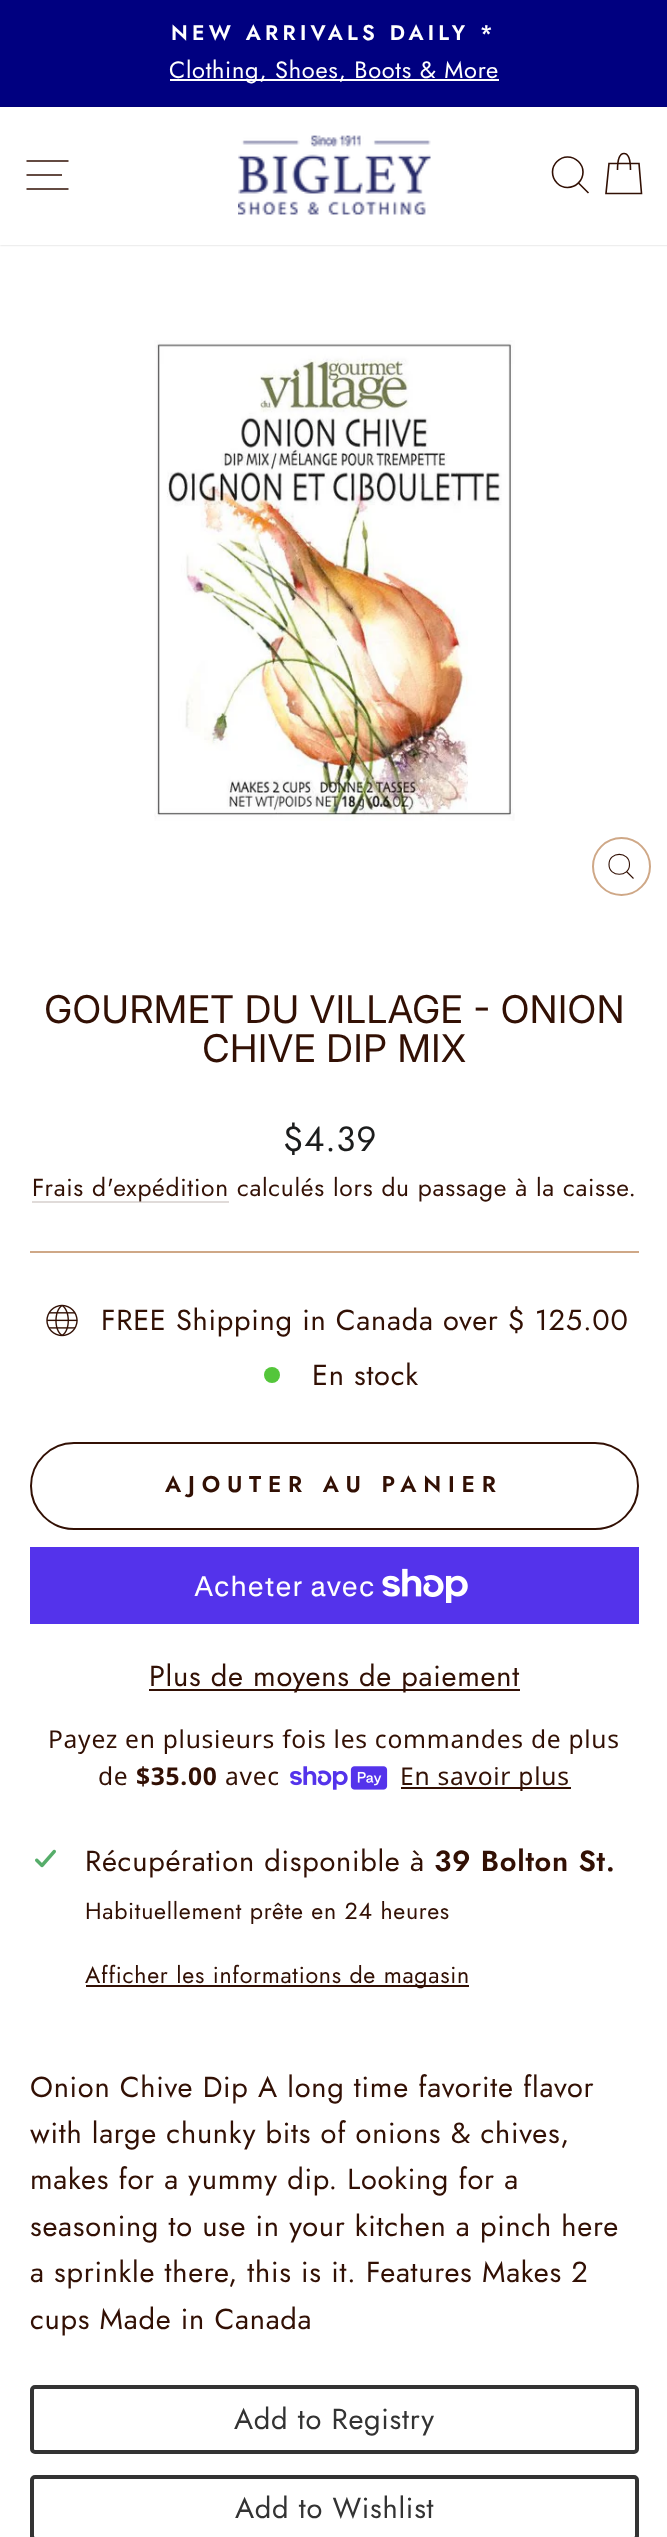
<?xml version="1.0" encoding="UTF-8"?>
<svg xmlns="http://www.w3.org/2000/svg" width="667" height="2537">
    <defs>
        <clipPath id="clip1"><path d="M 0 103 H 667 V 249 H 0 Z M 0 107 H 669 V 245 H 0 Z" clip-rule="evenodd"/></clipPath>
        <filter id="blur1" x="-50%" y="-200%" width="200%" height="500%"><feGaussianBlur stdDeviation="1"/></filter>
    </defs>
    <rect width="100%" height="100%" fill="#FFFFFF"/>
    <rect x="0" y="0" width="667" height="107" fill="#000080"/>
    <text x="171" y="40" font-family="Jost" font-size="21.25" font-weight="600" letter-spacing="4.25" fill="#FFFFFF">NEW ARRIVALS DAILY *</text>
    <rect x="170" y="79" width="329" height="2" fill="#FFFFFF"/>
    <text x="169" y="78" font-family="Jost" font-size="23.6" letter-spacing="0.72" fill="#FFFFFF">Clothing, Shoes, Boots &amp; More</text>
    <g clip-path="url(#clip1)">
        <rect x="0" y="107" width="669" height="138" fill="#000000" fill-opacity="0.2" filter="url(#blur1)"/>
    </g>
    <path d="M 26.5 161 H 68.5 M 26.5 175 H 62 M 26.5 189 H 68.5" fill="none" stroke="#321004" stroke-width="1.6"/>
    <image x="238" y="135" width="193" height="80" href="img_01.png"/>
    <path d="M 583 172 C 583 180.5 576 187.5 567.5 187.5 C 559.5 187.5 552.5 180.5 552.5 172 C 552.5 164 559.5 157 567.5 157 C 576 157 583 164 583 172 Z M 588.5 193 L 578.5 183" fill="none" stroke="#321004" stroke-width="1.6"/>
    <path d="M 617.5 170 C 617.5 157 620 153.5 624 153.5 C 627.5 153.5 630.5 157 630.5 170 M 609 163.5 H 639 L 641.5 193.5 H 606 Z" fill="none" stroke="#321004" stroke-width="1.6"/>
    <image x="154" y="340" width="361" height="481" href="img_02.png"/>
    <circle cx="621.5" cy="866.5" r="28.5" fill="none" stroke="#CFA887" stroke-width="2"/>
    <path d="M 629.5 864.5 C 629.5 877.5 609 877.5 609 864.5 C 609 851 629.5 851 629.5 864.5 Z M 633.5 878.5 L 626.5 871.5" fill="none" stroke="#321004" stroke-width="1.1"/>
    <text x="44" y="1023" font-family="Inter" font-size="38.3" fill="#321004">GOURMET DU VILLAGE - ONION</text>
    <text x="202" y="1062" font-family="Inter" font-size="38.3" fill="#321004">CHIVE DIP MIX</text>
    <text x="283" y="1151" font-family="Jost" font-size="35" letter-spacing="0.72" fill="#1C1D1D">$4.39</text>
    <rect x="32" y="1201" width="197" height="2" fill="#E0DBD9"/>
    <text x="32" y="1196" font-family="Jost" font-size="24.6" letter-spacing="0.72" fill="#321004">Frais d'expédition calculés lors du passage à la caisse.</text>
    <rect x="30" y="1251" width="609" height="2" fill="#CFA887"/>
    <image x="46" y="1304" width="32" height="33" href="img_03.png"/>
    <text x="101" y="1330" font-family="Jost" font-size="29" letter-spacing="0.72" fill="#321004">FREE Shipping in Canada over $ 125.00</text>
    <circle cx="272" cy="1375" r="8" fill="#54C63A"/>
    <text x="312" y="1385" font-family="Jost" font-size="29" letter-spacing="0.72" fill="#321004">En stock</text>
    <rect x="31" y="1443" width="607" height="86" rx="43" fill="none" stroke="#321004" stroke-width="2"/>
    <text x="165" y="1492" font-family="Jost" font-size="22.75" font-weight="600" letter-spacing="6.8" fill="#321004">AJOUTER AU PANIER</text>
    <rect x="30" y="1547" width="609" height="77" fill="#5433EB"/>
    <text x="194" y="1596" font-family="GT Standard" font-size="28" letter-spacing="0.72" fill="#FFFFFF">Acheter avec</text>
    <image x="382" y="1568" width="86" height="35" href="img_04.png"/>
    <rect x="149" y="1689" width="371" height="2" fill="#321004"/>
    <text x="149" y="1686" font-family="Jost" font-size="29" letter-spacing="0.72" fill="#321004">Plus de moyens de paiement</text>
    <text x="48" y="1748" font-family="Noto Sans" font-size="24.6" letter-spacing="0.72" fill="#321004">Payez en plusieurs fois les commandes de plus</text>
    <text x="98" y="1785" font-family="Noto Sans" font-size="24.6" letter-spacing="0.72" fill="#321004">de</text>
    <text x="136" y="1785" font-family="Noto Sans" font-size="24.6" font-weight="700" letter-spacing="0.72" fill="#321004">$35.00</text>
    <text x="225" y="1785" font-family="Noto Sans" font-size="24.6" letter-spacing="0.72" fill="#321004">avec</text>
    <image x="290" y="1766" width="98" height="24" href="img_05.png"/>
    <rect x="401" y="1787" width="170" height="2" fill="#321004"/>
    <text x="400" y="1785" font-family="Noto Sans" font-size="24.6" letter-spacing="0.72" fill="#321004">En savoir plus</text>
    <image x="35" y="1849" width="21" height="19" href="img_06.png"/>
    <text x="85" y="1871" font-family="Jost" font-size="29" letter-spacing="0.72" fill="#321004">Récupération disponible à</text>
    <text x="434" y="1871" font-family="Jost" font-size="29" font-weight="600" letter-spacing="0.72" fill="#321004">39 Bolton St.</text>
    <text x="85" y="1919" font-family="Jost" font-size="23.2" letter-spacing="0.72" fill="#321004">Habituellement prête en 24 heures</text>
    <rect x="86" y="1985" width="383" height="2" fill="#321004"/>
    <text x="85" y="1983" font-family="Jost" font-size="23.2" letter-spacing="0.72" fill="#321004">Afficher les informations de magasin</text>
    <text font-family="Jost" font-size="29" letter-spacing="0.72" fill="#321004">
        <tspan x="30" y="2097">Onion Chive Dip A long time favorite flavor</tspan>
        <tspan x="30" y="2143">with large chunky bits of onions &amp; chives,</tspan>
        <tspan x="30" y="2189">makes for a yummy dip. Looking for a</tspan>
        <tspan x="30" y="2236">seasoning to use in your kitchen a pinch here</tspan>
        <tspan x="30" y="2282">a sprinkle there, this is it. Features Makes 2</tspan>
        <tspan x="30" y="2329">cups Made in Canada</tspan>
    </text>
    <rect x="32" y="2387" width="605" height="65" rx="3" fill="none" stroke="#333333" stroke-width="4"/>
    <text x="234" y="2429" font-family="Jost" font-size="29" letter-spacing="0.72" fill="#333333">Add to Registry</text>
    <rect x="32" y="2477" width="605" height="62" rx="3" fill="none" stroke="#333333" stroke-width="4"/>
    <text x="235" y="2518" font-family="Jost" font-size="29" letter-spacing="0.72" fill="#333333">Add to Wishlist</text>
</svg>
